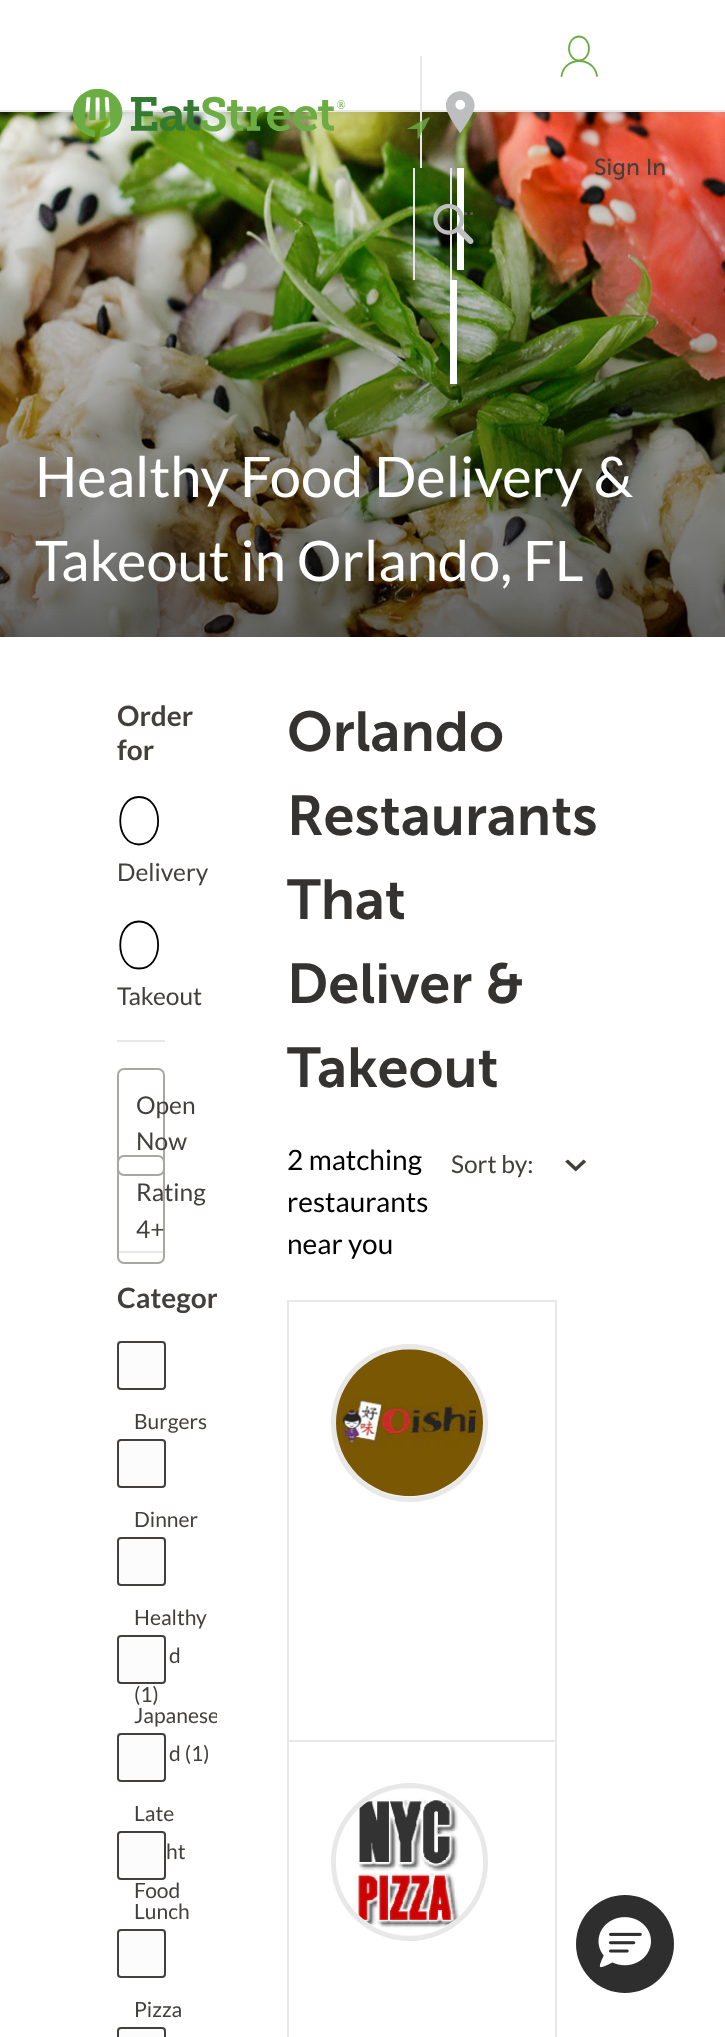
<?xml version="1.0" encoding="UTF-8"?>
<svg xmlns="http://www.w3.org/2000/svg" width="725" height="2037">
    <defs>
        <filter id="blur1" x="-50%" y="-200%" width="200%" height="500%"><feGaussianBlur stdDeviation="3.5"/></filter>
        <clipPath id="clip1"><rect x="100" y="637" width="117" height="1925"/></clipPath>
    </defs>
    <rect width="100%" height="100%" fill="#FFFFFF"/>
    <image x="0" y="112" width="725" height="525" href="img_05.png"/>
    <rect x="0" y="2" width="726" height="112" fill="#000000" fill-opacity="0.08" filter="url(#blur1)"/>
    <rect x="0" y="0" width="725" height="110" fill="#FFFFFF"/>
    <rect x="0" y="110" width="725" height="2" fill="#E8E8E8"/>
    <image x="72" y="88" width="274" height="49" href="img_01.png"/>
    <path d="M 597 76 C 594 56 564.5 56 561.5 76" fill="none" stroke="#6BAD44" stroke-width="1.8" stroke-linecap="round"/>
    <ellipse cx="579" cy="48.5" rx="10" ry="12" fill="none" stroke="#6BAD44" stroke-width="1.8"/>
    <text x="594" y="175" font-family="Museo Sans" font-size="23" fill="#423F3C">Sign In</text>
    <rect x="450" y="168" width="2" height="112" fill="#E8E8E8"/>
    <rect x="413" y="168" width="2" height="112" fill="#E8E8E8"/>
    <rect x="457" y="168" width="7" height="102" fill="#FFFFFF"/>
    <text x="457" y="215" font-family="Museo Sans" font-size="21" font-weight="600" letter-spacing="1" fill="#5D5954">…</text>
    <image x="433" y="203" width="41" height="41" href="img_02.png"/>
    <rect x="450" y="280" width="7" height="104" fill="#FFFFFF"/>
    <rect x="420" y="56" width="2" height="112" fill="#E8E8E8"/>
    <image x="407" y="117" width="23" height="22" href="img_03.png"/>
    <image x="445" y="91" width="30" height="42" href="img_04.png"/>
    <text font-family="Lato" font-size="56" fill="#FFFFFF">
        <tspan x="35" y="497">Healthy Food Delivery &amp;</tspan>
        <tspan x="35" y="581">Takeout in Orlando, FL</tspan>
    </text>
    <rect x="117" y="1040" width="48" height="2" fill="#E8E8E8"/>
    <text font-family="Lato" font-size="28" font-weight="700" fill="#423F3C">
        <tspan x="117" y="726">Order</tspan>
        <tspan x="117" y="760">for</tspan>
    </text>
    <path d="M 139 797 C 164.5 797 164.5 844.5 139 844.5 C 114 844.5 114 797 139 797 Z" fill="none" stroke="#000000" stroke-width="1.8"/>
    <text x="117" y="881" font-family="Lato" font-size="24.5" fill="#423F3C">Delivery</text>
    <path d="M 139 921.5 C 164.5 921.5 164.5 968.5 139 968.5 C 114 968.5 114 921.5 139 921.5 Z" fill="none" stroke="#000000" stroke-width="1.8"/>
    <text x="117" y="1005" font-family="Lato" font-size="24.5" fill="#423F3C">Takeout</text>
    <rect x="117" y="1251" width="48" height="2" fill="#E8E8E8"/>
    <rect x="118" y="1069" width="46" height="106" rx="6" fill="none" stroke="#A8A7A2" stroke-width="2"/>
    <text font-family="Lato" font-size="24.5" fill="#423F3C">
        <tspan x="136" y="1114">Open</tspan>
        <tspan x="136" y="1150">Now</tspan>
    </text>
    <rect x="118" y="1156" width="46" height="107" rx="6" fill="none" stroke="#A8A7A2" stroke-width="2"/>
    <text font-family="Lato" font-size="24.5" fill="#423F3C">
        <tspan x="136" y="1201">Rating</tspan>
        <tspan x="136" y="1238">4+</tspan>
    </text>
    <g clip-path="url(#clip1)">
        <text x="117" y="1308" font-family="Lato" font-size="28" font-weight="700" fill="#423F3C">Categor</text>
    </g>
    <rect x="118" y="1342" width="47" height="47" rx="3" fill="#FCFCFC" stroke="#423F3C" stroke-width="2"/>
    <text x="134" y="1429" font-family="Lato" font-size="21" fill="#423F3C">Burgers</text>
    <rect x="118" y="1440" width="47" height="47" rx="3" fill="#FCFCFC" stroke="#423F3C" stroke-width="2"/>
    <text x="134" y="1527" font-family="Lato" font-size="21" fill="#423F3C">Dinner</text>
    <rect x="118" y="1538" width="47" height="47" rx="3" fill="#FCFCFC" stroke="#423F3C" stroke-width="2"/>
    <text x="134" y="1625" font-family="Lato" font-size="21" fill="#423F3C">Healthy</text>
    <text x="169" y="1663" font-family="Lato" font-size="21" fill="#423F3C">d</text>
    <text x="134" y="1702" font-family="Lato" font-size="21" fill="#423F3C">(1)</text>
    <rect x="118" y="1636" width="47" height="47" rx="3" fill="#FCFCFC" stroke="#423F3C" stroke-width="2"/>
    <g clip-path="url(#clip1)">
        <text x="134" y="1723" font-family="Lato" font-size="21" fill="#423F3C">Japanese</text>
    </g>
    <text x="169" y="1761" font-family="Lato" font-size="21" fill="#423F3C">d (1)</text>
    <rect x="118" y="1734" width="47" height="47" rx="3" fill="#FCFCFC" stroke="#423F3C" stroke-width="2"/>
    <text x="134" y="1821" font-family="Lato" font-size="21" fill="#423F3C">Late</text>
    <text x="166" y="1859" font-family="Lato" font-size="21" fill="#423F3C">ht</text>
    <text x="134" y="1898" font-family="Lato" font-size="21" fill="#423F3C">Food</text>
    <rect x="118" y="1832" width="47" height="47" rx="3" fill="#FCFCFC" stroke="#423F3C" stroke-width="2"/>
    <text x="134" y="1919" font-family="Lato" font-size="21" fill="#423F3C">Lunch</text>
    <rect x="118" y="1930" width="47" height="47" rx="3" fill="#FCFCFC" stroke="#423F3C" stroke-width="2"/>
    <text x="134" y="2017" font-family="Lato" font-size="21" fill="#423F3C">Pizza</text>
    <rect x="118" y="2028" width="47" height="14" rx="3" fill="#FCFCFC" stroke="#423F3C" stroke-width="2"/>
    <text font-family="Museo Sans" font-size="56" font-weight="600" fill="#353331">
        <tspan x="287" y="751">Orlando</tspan>
        <tspan x="287" y="835">Restaurants</tspan>
        <tspan x="287" y="919">That</tspan>
        <tspan x="287" y="1003">Deliver &amp;</tspan>
        <tspan x="287" y="1087">Takeout</tspan>
    </text>
    <text font-family="Lato" font-size="28" fill="#000000">
        <tspan x="287" y="1170">2 matching</tspan>
        <tspan x="287" y="1212">restaurants</tspan>
        <tspan x="287" y="1254">near you</tspan>
    </text>
    <text x="451" y="1173" font-family="Lato" font-size="24.5" fill="#423F3C">Sort by:</text>
    <image x="565" y="1159" width="21" height="13" href="img_06.png"/>
    <rect x="287" y="1300" width="270" height="2" fill="#E8E8E8"/>
    <rect x="555" y="1300" width="2" height="440" fill="#E8E8E8"/>
    <rect x="287" y="1300" width="2" height="440" fill="#E8E8E8"/>
    <rect x="333.5" y="1346.5" width="152" height="153" rx="76" fill="#F8F8F7" stroke="#E8E8E8" stroke-width="5"/>
    <image x="336" y="1349" width="147" height="148" href="img_07.png"/>
    <rect x="288" y="1741" width="268" height="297" fill="none" stroke="#E8E8E8" stroke-width="2"/>
    <rect x="333.5" y="1785.5" width="152" height="153" rx="76" fill="#F8F8F7" stroke="#E8E8E8" stroke-width="5"/>
    <image x="336" y="1789" width="147" height="146" href="img_08.png"/>
    <circle cx="625" cy="1944" r="49" fill="#2E2E2E"/>
    <image x="598" y="1917" width="53" height="51" href="img_09.png"/>
</svg>
